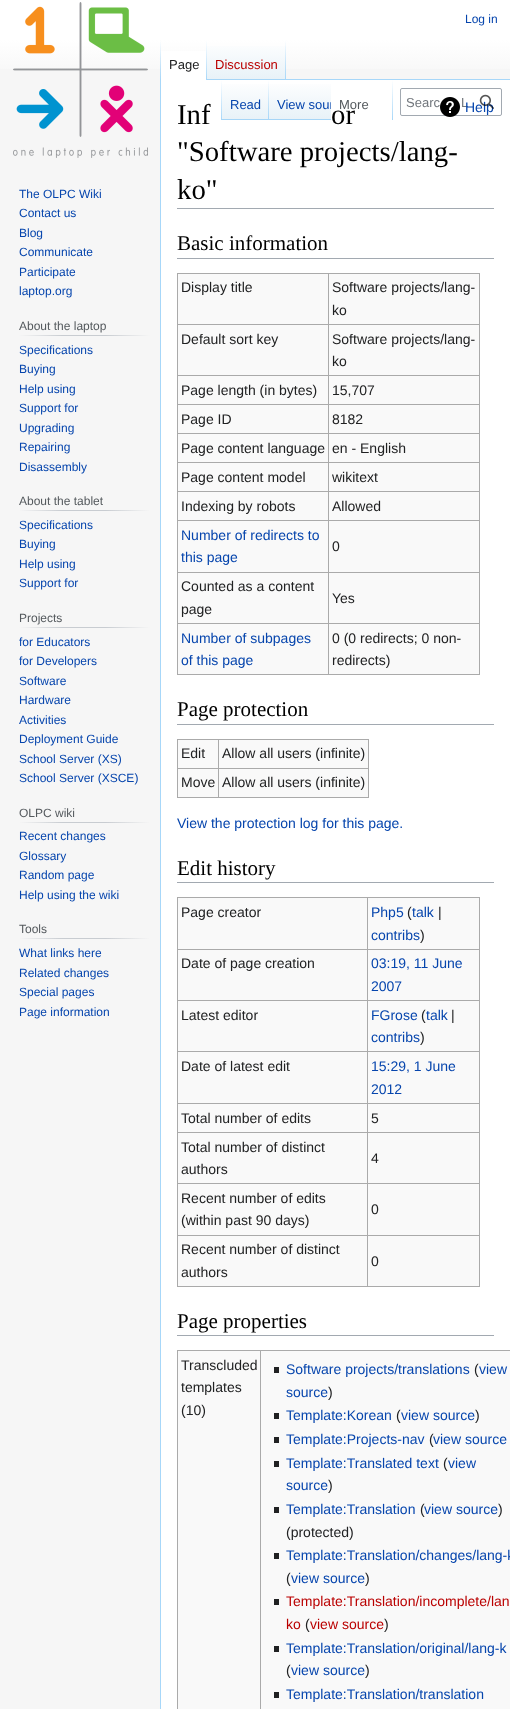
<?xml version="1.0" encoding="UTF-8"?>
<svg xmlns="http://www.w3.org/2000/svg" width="510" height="1709">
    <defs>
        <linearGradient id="g1" gradientUnits="userSpaceOnUse" x1="255" y1="0" x2="255" y2="80"><stop offset="0.5" stop-color="#FFFFFF"/><stop offset="1" stop-color="#F6F6F6"/></linearGradient>
        <linearGradient id="g2" gradientUnits="userSpaceOnUse" x1="161" y1="40" x2="161" y2="80"><stop offset="0" stop-color="#A7D7F9" stop-opacity="0"/><stop offset="1" stop-color="#A7D7F9"/></linearGradient>
        <linearGradient id="g3" gradientUnits="userSpaceOnUse" x1="207" y1="40" x2="207" y2="80"><stop offset="0" stop-color="#FFFFFF"/><stop offset="1" stop-color="#A7D7F9"/></linearGradient>
        <linearGradient id="g4" gradientUnits="userSpaceOnUse" x1="247" y1="80" x2="247" y2="40"><stop offset="0" stop-color="#77C1F6"/><stop offset="0.03" stop-color="#E8F2F8"/><stop offset="1" stop-color="#FFFFFF"/></linearGradient>
        <linearGradient id="g5" gradientUnits="userSpaceOnUse" x1="286" y1="40" x2="286" y2="80"><stop offset="0" stop-color="#A7D7F9" stop-opacity="0"/><stop offset="1" stop-color="#A7D7F9"/></linearGradient>
        <linearGradient id="g6" gradientUnits="userSpaceOnUse" x1="222" y1="80" x2="222" y2="120"><stop offset="0" stop-color="#A7D7F9" stop-opacity="0"/><stop offset="1" stop-color="#A7D7F9"/></linearGradient>
        <linearGradient id="g7" gradientUnits="userSpaceOnUse" x1="246" y1="120" x2="246" y2="80"><stop offset="0" stop-color="#77C1F6"/><stop offset="0.03" stop-color="#E8F2F8"/><stop offset="1" stop-color="#FFFFFF"/></linearGradient>
        <linearGradient id="g8" gradientUnits="userSpaceOnUse" x1="269" y1="80" x2="269" y2="120"><stop offset="0" stop-color="#A7D7F9" stop-opacity="0"/><stop offset="1" stop-color="#A7D7F9"/></linearGradient>
        <linearGradient id="g9" gradientUnits="userSpaceOnUse" x1="300" y1="120" x2="300" y2="80"><stop offset="0" stop-color="#77C1F6"/><stop offset="0.03" stop-color="#E8F2F8"/><stop offset="1" stop-color="#FFFFFF"/></linearGradient>
        <clipPath id="clip1"><rect x="269" y="80" width="62" height="40"/></clipPath>
        <linearGradient id="g10" gradientUnits="userSpaceOnUse" x1="393" y1="80" x2="393" y2="120"><stop offset="0" stop-color="#FFFFFF"/><stop offset="1" stop-color="#A7D7F9"/></linearGradient>
        <linearGradient id="g11" gradientUnits="userSpaceOnUse" x1="19" y1="336" x2="150" y2="336"><stop offset="0" stop-color="#F6F6F6"/><stop offset="0.33" stop-color="#C8CCD1"/><stop offset="0.66" stop-color="#C8CCD1"/><stop offset="1" stop-color="#F6F6F6"/></linearGradient>
        <linearGradient id="g12" gradientUnits="userSpaceOnUse" x1="19" y1="511" x2="150" y2="511"><stop offset="0" stop-color="#F6F6F6"/><stop offset="0.33" stop-color="#C8CCD1"/><stop offset="0.66" stop-color="#C8CCD1"/><stop offset="1" stop-color="#F6F6F6"/></linearGradient>
        <linearGradient id="g13" gradientUnits="userSpaceOnUse" x1="19" y1="628" x2="150" y2="628"><stop offset="0" stop-color="#F6F6F6"/><stop offset="0.33" stop-color="#C8CCD1"/><stop offset="0.66" stop-color="#C8CCD1"/><stop offset="1" stop-color="#F6F6F6"/></linearGradient>
        <linearGradient id="g14" gradientUnits="userSpaceOnUse" x1="19" y1="823" x2="150" y2="823"><stop offset="0" stop-color="#F6F6F6"/><stop offset="0.33" stop-color="#C8CCD1"/><stop offset="0.66" stop-color="#C8CCD1"/><stop offset="1" stop-color="#F6F6F6"/></linearGradient>
        <linearGradient id="g15" gradientUnits="userSpaceOnUse" x1="19" y1="939" x2="150" y2="939"><stop offset="0" stop-color="#F6F6F6"/><stop offset="0.33" stop-color="#C8CCD1"/><stop offset="0.66" stop-color="#C8CCD1"/><stop offset="1" stop-color="#F6F6F6"/></linearGradient>
    </defs>
    <rect width="100%" height="100%" fill="#F6F6F6"/>
    <rect x="0" y="0" width="510" height="69" fill="url(#g1)"/>
    <text x="465" y="23" font-family="Liberation Sans" font-size="12" fill="#0645AD">Log in</text>
    <rect x="160" y="79" width="1" height="1630" fill="#A7D7F9"/>
    <rect x="160" y="40" width="1" height="40" fill="url(#g2)"/>
    <rect x="161" y="51" width="45" height="29" fill="#FFFFFF"/>
    <rect x="206" y="40" width="1" height="40" fill="url(#g3)"/>
    <text x="169" y="69" font-family="Liberation Sans" font-size="13" fill="#202122">Page</text>
    <rect x="207" y="46" width="79" height="34" fill="url(#g4)"/>
    <rect x="285" y="40" width="1" height="40" fill="url(#g5)"/>
    <text x="215" y="69" font-family="Liberation Sans" font-size="13" fill="#BA0000">Discussion</text>
    <rect x="161" y="80" width="349" height="1629" fill="#FFFFFF"/>
    <rect x="221" y="80" width="1" height="40" fill="url(#g6)"/>
    <rect x="222" y="84" width="47" height="36" fill="url(#g7)"/>
    <rect x="268" y="80" width="1" height="40" fill="url(#g8)"/>
    <text x="230" y="109" font-family="Liberation Sans" font-size="13" fill="#0645AD">Read</text>
    <rect x="269" y="84" width="62" height="36" fill="url(#g9)"/>
    <g clip-path="url(#clip1)">
        <text x="277" y="109" font-family="Liberation Sans" font-size="13" fill="#0645AD">View sour</text>
    </g>
    <rect x="392" y="80" width="1" height="40" fill="url(#g10)"/>
    <text x="339" y="109" font-family="Liberation Sans" font-size="13" fill="#54595D">More</text>
    <rect x="400.5" y="88.5" width="101" height="27" rx="1.5" fill="none" stroke="#A2A9B1"/>
    <text x="406" y="107" font-family="Liberation Sans" font-size="13" fill="#72777D">Searc</text>
    <text x="461" y="107" font-family="Liberation Sans" font-size="13" fill="#72777D">L</text>
    <text x="465" y="112" font-family="Liberation Sans" font-size="14" fill="#0645AD">Help</text>
    <image x="479" y="94" width="15" height="15" href="img_01.png"/>
    <image x="13" y="2" width="135" height="156" href="img_02.png"/>
    <text font-family="Liberation Sans" font-size="12" fill="#0645AD">
        <tspan x="19" y="198">The OLPC Wiki</tspan>
        <tspan x="19" y="217">Contact us</tspan>
        <tspan x="19" y="237">Blog</tspan>
        <tspan x="19" y="256">Communicate</tspan>
        <tspan x="19" y="276">Participate</tspan>
        <tspan x="19" y="295">laptop.org</tspan>
    </text>
    <rect x="19" y="335" width="131" height="1" fill="url(#g11)"/>
    <text x="19" y="330" font-family="Liberation Sans" font-size="12" fill="#54595D">About the laptop</text>
    <text font-family="Liberation Sans" font-size="12" fill="#0645AD">
        <tspan x="19" y="354">Specifications</tspan>
        <tspan x="19" y="373">Buying</tspan>
        <tspan x="19" y="393">Help using</tspan>
        <tspan x="19" y="412">Support for</tspan>
        <tspan x="19" y="432">Upgrading</tspan>
        <tspan x="19" y="451">Repairing</tspan>
        <tspan x="19" y="471">Disassembly</tspan>
    </text>
    <rect x="19" y="510" width="131" height="1" fill="url(#g12)"/>
    <text x="19" y="505" font-family="Liberation Sans" font-size="12" fill="#54595D">About the tablet</text>
    <text font-family="Liberation Sans" font-size="12" fill="#0645AD">
        <tspan x="19" y="529">Specifications</tspan>
        <tspan x="19" y="548">Buying</tspan>
        <tspan x="19" y="568">Help using</tspan>
        <tspan x="19" y="587">Support for</tspan>
    </text>
    <rect x="19" y="627" width="131" height="1" fill="url(#g13)"/>
    <text x="19" y="622" font-family="Liberation Sans" font-size="12" fill="#54595D">Projects</text>
    <text font-family="Liberation Sans" font-size="12" fill="#0645AD">
        <tspan x="19" y="646">for Educators</tspan>
        <tspan x="19" y="665">for Developers</tspan>
        <tspan x="19" y="685">Software</tspan>
        <tspan x="19" y="704">Hardware</tspan>
        <tspan x="19" y="724">Activities</tspan>
        <tspan x="19" y="743">Deployment Guide</tspan>
        <tspan x="19" y="763">School Server (XS)</tspan>
        <tspan x="19" y="782">School Server (XSCE)</tspan>
    </text>
    <rect x="19" y="822" width="131" height="1" fill="url(#g14)"/>
    <text x="19" y="817" font-family="Liberation Sans" font-size="12" fill="#54595D">OLPC wiki</text>
    <text font-family="Liberation Sans" font-size="12" fill="#0645AD">
        <tspan x="19" y="840">Recent changes</tspan>
        <tspan x="19" y="860">Glossary</tspan>
        <tspan x="19" y="879">Random page</tspan>
        <tspan x="19" y="899">Help using the wiki</tspan>
    </text>
    <rect x="19" y="938" width="131" height="1" fill="url(#g15)"/>
    <text x="19" y="933" font-family="Liberation Sans" font-size="12" fill="#54595D">Tools</text>
    <text font-family="Liberation Sans" font-size="12" fill="#0645AD">
        <tspan x="19" y="957">What links here</tspan>
        <tspan x="19" y="977">Related changes</tspan>
        <tspan x="19" y="996">Special pages</tspan>
        <tspan x="19" y="1016">Page information</tspan>
    </text>
    <rect x="286" y="79" width="224" height="1" fill="#A7D7F9"/>
    <rect x="177" y="208" width="317" height="1" fill="#A2A9B1"/>
    <text x="177" y="124" font-family="Liberation Serif" font-size="28.75" fill="#000000">Inf</text>
    <text x="331" y="124" font-family="Liberation Serif" font-size="28.75" fill="#000000">or</text>
    <text font-family="Liberation Serif" font-size="28.75" fill="#000000">
        <tspan x="177" y="161">"Software projects/lang-</tspan>
        <tspan x="177" y="199">ko"</tspan>
    </text>
    <image x="440" y="97" width="20" height="20" href="img_03.png"/>
    <rect x="177" y="258" width="317" height="1" fill="#A2A9B1"/>
    <text x="177" y="250" font-family="Liberation Serif" font-size="21" fill="#000000">Basic information</text>
    <rect x="178" y="274" width="301" height="400" fill="#F9F9F9"/>
    <rect x="177" y="273" width="303" height="1" fill="#AAAAAA"/>
    <rect x="479" y="273" width="1" height="402" fill="#AAAAAA"/>
    <rect x="177" y="674" width="303" height="1" fill="#AAAAAA"/>
    <rect x="177" y="273" width="1" height="402" fill="#AAAAAA"/>
    <text x="181" y="292" font-family="Liberation Sans" font-size="14" fill="#202122">Display title</text>
    <rect x="328" y="324" width="152" height="1" fill="#AAAAAA"/>
    <rect x="328" y="375" width="152" height="1" fill="#AAAAAA"/>
    <rect x="328" y="404" width="152" height="1" fill="#AAAAAA"/>
    <rect x="328" y="433" width="152" height="1" fill="#AAAAAA"/>
    <rect x="328" y="462" width="152" height="1" fill="#AAAAAA"/>
    <rect x="328" y="491" width="152" height="1" fill="#AAAAAA"/>
    <rect x="328" y="520" width="152" height="1" fill="#AAAAAA"/>
    <rect x="328" y="572" width="152" height="1" fill="#AAAAAA"/>
    <rect x="328" y="623" width="152" height="1" fill="#AAAAAA"/>
    <rect x="328" y="623" width="1" height="52" fill="#AAAAAA"/>
    <rect x="177" y="623" width="152" height="1" fill="#AAAAAA"/>
    <rect x="328" y="572" width="1" height="52" fill="#AAAAAA"/>
    <rect x="177" y="572" width="152" height="1" fill="#AAAAAA"/>
    <rect x="328" y="520" width="1" height="53" fill="#AAAAAA"/>
    <rect x="177" y="520" width="152" height="1" fill="#AAAAAA"/>
    <rect x="328" y="491" width="1" height="30" fill="#AAAAAA"/>
    <rect x="177" y="491" width="152" height="1" fill="#AAAAAA"/>
    <rect x="328" y="462" width="1" height="30" fill="#AAAAAA"/>
    <rect x="177" y="462" width="152" height="1" fill="#AAAAAA"/>
    <rect x="328" y="433" width="1" height="30" fill="#AAAAAA"/>
    <rect x="177" y="433" width="152" height="1" fill="#AAAAAA"/>
    <rect x="328" y="404" width="1" height="30" fill="#AAAAAA"/>
    <rect x="177" y="404" width="152" height="1" fill="#AAAAAA"/>
    <rect x="328" y="375" width="1" height="30" fill="#AAAAAA"/>
    <rect x="177" y="375" width="152" height="1" fill="#AAAAAA"/>
    <rect x="328" y="324" width="1" height="52" fill="#AAAAAA"/>
    <rect x="177" y="324" width="152" height="1" fill="#AAAAAA"/>
    <rect x="328" y="273" width="1" height="52" fill="#AAAAAA"/>
    <text font-family="Liberation Sans" font-size="14" fill="#202122">
        <tspan x="332" y="292">Software projects/lang-</tspan>
        <tspan x="332" y="315">ko</tspan>
    </text>
    <text x="181" y="344" font-family="Liberation Sans" font-size="14" fill="#202122">Default sort key</text>
    <text font-family="Liberation Sans" font-size="14" fill="#202122">
        <tspan x="332" y="344">Software projects/lang-</tspan>
        <tspan x="332" y="366">ko</tspan>
    </text>
    <text x="181" y="395" font-family="Liberation Sans" font-size="14" fill="#202122">Page length (in bytes)</text>
    <text x="332" y="395" font-family="Liberation Sans" font-size="14" fill="#202122">15,707</text>
    <text x="181" y="424" font-family="Liberation Sans" font-size="14" fill="#202122">Page ID</text>
    <text x="332" y="424" font-family="Liberation Sans" font-size="14" fill="#202122">8182</text>
    <text x="181" y="453" font-family="Liberation Sans" font-size="14" fill="#202122">Page content language</text>
    <text x="332" y="453" font-family="Liberation Sans" font-size="14" fill="#202122">en - English</text>
    <text x="181" y="482" font-family="Liberation Sans" font-size="14" fill="#202122">Page content model</text>
    <text x="332" y="482" font-family="Liberation Sans" font-size="14" fill="#202122">wikitext</text>
    <text x="181" y="511" font-family="Liberation Sans" font-size="14" fill="#202122">Indexing by robots</text>
    <text x="332" y="511" font-family="Liberation Sans" font-size="14" fill="#202122">Allowed</text>
    <text font-family="Liberation Sans" font-size="14" fill="#0645AD">
        <tspan x="181" y="540">Number of redirects to</tspan>
        <tspan x="181" y="562">this page</tspan>
    </text>
    <text x="332" y="551" font-family="Liberation Sans" font-size="14" fill="#202122">0</text>
    <text font-family="Liberation Sans" font-size="14" fill="#202122">
        <tspan x="181" y="591">Counted as a content</tspan>
        <tspan x="181" y="614">page</tspan>
    </text>
    <text x="332" y="603" font-family="Liberation Sans" font-size="14" fill="#202122">Yes</text>
    <text font-family="Liberation Sans" font-size="14" fill="#0645AD">
        <tspan x="181" y="643">Number of subpages</tspan>
        <tspan x="181" y="665">of this page</tspan>
    </text>
    <text font-family="Liberation Sans" font-size="14" fill="#202122">
        <tspan x="332" y="643">0 (0 redirects; 0 non-</tspan>
        <tspan x="332" y="665">redirects)</tspan>
    </text>
    <rect x="177" y="724" width="317" height="1" fill="#A2A9B1"/>
    <text x="177" y="716" font-family="Liberation Serif" font-size="21" fill="#000000">Page protection</text>
    <rect x="178" y="740" width="190" height="57" fill="#F9F9F9"/>
    <rect x="177" y="739" width="192" height="1" fill="#AAAAAA"/>
    <rect x="368" y="739" width="1" height="59" fill="#AAAAAA"/>
    <rect x="177" y="797" width="192" height="1" fill="#AAAAAA"/>
    <rect x="177" y="739" width="1" height="59" fill="#AAAAAA"/>
    <text x="181" y="758" font-family="Liberation Sans" font-size="14" fill="#202122">Edit</text>
    <rect x="218" y="768" width="151" height="1" fill="#AAAAAA"/>
    <rect x="218" y="768" width="1" height="30" fill="#AAAAAA"/>
    <rect x="177" y="768" width="42" height="1" fill="#AAAAAA"/>
    <rect x="218" y="739" width="1" height="30" fill="#AAAAAA"/>
    <text x="222" y="758" font-family="Liberation Sans" font-size="14" fill="#202122">Allow all users (infinite)</text>
    <text x="181" y="787" font-family="Liberation Sans" font-size="14" fill="#202122">Move</text>
    <text x="222" y="787" font-family="Liberation Sans" font-size="14" fill="#202122">Allow all users (infinite)</text>
    <text x="177" y="828" font-family="Liberation Sans" font-size="14" fill="#0645AD">View the protection log for this page.</text>
    <rect x="177" y="882" width="317" height="1" fill="#A2A9B1"/>
    <text x="177" y="875" font-family="Liberation Serif" font-size="21" fill="#000000">Edit history</text>
    <rect x="178" y="898" width="301" height="388" fill="#F9F9F9"/>
    <rect x="177" y="897" width="303" height="1" fill="#AAAAAA"/>
    <rect x="479" y="897" width="1" height="390" fill="#AAAAAA"/>
    <rect x="177" y="1286" width="303" height="1" fill="#AAAAAA"/>
    <rect x="177" y="897" width="1" height="390" fill="#AAAAAA"/>
    <text x="181" y="917" font-family="Liberation Sans" font-size="14" fill="#202122">Page creator</text>
    <rect x="367" y="949" width="113" height="1" fill="#AAAAAA"/>
    <rect x="367" y="1000" width="113" height="1" fill="#AAAAAA"/>
    <rect x="367" y="1051" width="113" height="1" fill="#AAAAAA"/>
    <rect x="367" y="1103" width="113" height="1" fill="#AAAAAA"/>
    <rect x="367" y="1132" width="113" height="1" fill="#AAAAAA"/>
    <rect x="367" y="1183" width="113" height="1" fill="#AAAAAA"/>
    <rect x="367" y="1235" width="113" height="1" fill="#AAAAAA"/>
    <rect x="367" y="1235" width="1" height="52" fill="#AAAAAA"/>
    <rect x="177" y="1235" width="191" height="1" fill="#AAAAAA"/>
    <rect x="367" y="1183" width="1" height="53" fill="#AAAAAA"/>
    <rect x="177" y="1183" width="191" height="1" fill="#AAAAAA"/>
    <rect x="367" y="1132" width="1" height="52" fill="#AAAAAA"/>
    <rect x="177" y="1132" width="191" height="1" fill="#AAAAAA"/>
    <rect x="367" y="1103" width="1" height="30" fill="#AAAAAA"/>
    <rect x="177" y="1103" width="191" height="1" fill="#AAAAAA"/>
    <rect x="367" y="1051" width="1" height="53" fill="#AAAAAA"/>
    <rect x="177" y="1051" width="191" height="1" fill="#AAAAAA"/>
    <rect x="367" y="1000" width="1" height="52" fill="#AAAAAA"/>
    <rect x="177" y="1000" width="191" height="1" fill="#AAAAAA"/>
    <rect x="367" y="949" width="1" height="52" fill="#AAAAAA"/>
    <rect x="177" y="949" width="191" height="1" fill="#AAAAAA"/>
    <rect x="367" y="897" width="1" height="53" fill="#AAAAAA"/>
    <text x="371" y="917" font-family="Liberation Sans" font-size="14" fill="#0645AD">Php5</text>
    <text x="407" y="917" font-family="Liberation Sans" font-size="14" fill="#202122">(</text>
    <text x="412" y="917" font-family="Liberation Sans" font-size="14" fill="#0645AD">talk</text>
    <text x="438" y="917" font-family="Liberation Sans" font-size="14" fill="#202122">|</text>
    <text x="371" y="940" font-family="Liberation Sans" font-size="14" fill="#0645AD">contribs</text>
    <text x="420" y="940" font-family="Liberation Sans" font-size="14" fill="#202122">)</text>
    <text x="181" y="968" font-family="Liberation Sans" font-size="14" fill="#202122">Date of page creation</text>
    <text font-family="Liberation Sans" font-size="14" fill="#0645AD">
        <tspan x="371" y="968">03:19, 11 June</tspan>
        <tspan x="371" y="991">2007</tspan>
    </text>
    <text x="181" y="1020" font-family="Liberation Sans" font-size="14" fill="#202122">Latest editor</text>
    <text x="371" y="1020" font-family="Liberation Sans" font-size="14" fill="#0645AD">FGrose</text>
    <text x="421" y="1020" font-family="Liberation Sans" font-size="14" fill="#202122">(</text>
    <text x="426" y="1020" font-family="Liberation Sans" font-size="14" fill="#0645AD">talk</text>
    <text x="451" y="1020" font-family="Liberation Sans" font-size="14" fill="#202122">|</text>
    <text x="371" y="1042" font-family="Liberation Sans" font-size="14" fill="#0645AD">contribs</text>
    <text x="420" y="1042" font-family="Liberation Sans" font-size="14" fill="#202122">)</text>
    <text x="181" y="1071" font-family="Liberation Sans" font-size="14" fill="#202122">Date of latest edit</text>
    <text font-family="Liberation Sans" font-size="14" fill="#0645AD">
        <tspan x="371" y="1071">15:29, 1 June</tspan>
        <tspan x="371" y="1094">2012</tspan>
    </text>
    <text x="181" y="1123" font-family="Liberation Sans" font-size="14" fill="#202122">Total number of edits</text>
    <text x="371" y="1123" font-family="Liberation Sans" font-size="14" fill="#202122">5</text>
    <text font-family="Liberation Sans" font-size="14" fill="#202122">
        <tspan x="181" y="1152">Total number of distinct</tspan>
        <tspan x="181" y="1174">authors</tspan>
    </text>
    <text x="371" y="1163" font-family="Liberation Sans" font-size="14" fill="#202122">4</text>
    <text font-family="Liberation Sans" font-size="14" fill="#202122">
        <tspan x="181" y="1203">Recent number of edits</tspan>
        <tspan x="181" y="1225">(within past 90 days)</tspan>
    </text>
    <text x="371" y="1214" font-family="Liberation Sans" font-size="14" fill="#202122">0</text>
    <text font-family="Liberation Sans" font-size="14" fill="#202122">
        <tspan x="181" y="1254">Recent number of distinct</tspan>
        <tspan x="181" y="1277">authors</tspan>
    </text>
    <text x="371" y="1266" font-family="Liberation Sans" font-size="14" fill="#202122">0</text>
    <rect x="177" y="1335" width="317" height="1" fill="#A2A9B1"/>
    <text x="177" y="1328" font-family="Liberation Serif" font-size="21" fill="#000000">Page properties</text>
    <rect x="178" y="1351" width="332" height="358" fill="#F9F9F9"/>
    <rect x="177" y="1350" width="333" height="1" fill="#AAAAAA"/>
    <rect x="177" y="1350" width="1" height="359" fill="#AAAAAA"/>
    <text font-family="Liberation Sans" font-size="14" fill="#202122">
        <tspan x="181" y="1370">Transcluded</tspan>
        <tspan x="181" y="1392">templates</tspan>
        <tspan x="181" y="1415">(10)</tspan>
    </text>
    <rect x="260" y="1350" width="1" height="359" fill="#AAAAAA"/>
    <rect x="274" y="1367" width="5" height="6" fill="#202122"/>
    <text x="286" y="1374" font-family="Liberation Sans" font-size="14" fill="#0645AD">Software projects/translations</text>
    <text x="474" y="1374" font-family="Liberation Sans" font-size="14" fill="#202122">(</text>
    <text x="479" y="1374" font-family="Liberation Sans" font-size="14" fill="#0645AD">view</text>
    <text x="286" y="1397" font-family="Liberation Sans" font-size="14" fill="#0645AD">source</text>
    <text x="328" y="1397" font-family="Liberation Sans" font-size="14" fill="#202122">)</text>
    <rect x="274" y="1413" width="5" height="6" fill="#202122"/>
    <text x="286" y="1420" font-family="Liberation Sans" font-size="14" fill="#0645AD">Template:Korean</text>
    <text x="396" y="1420" font-family="Liberation Sans" font-size="14" fill="#202122">(</text>
    <text x="401" y="1420" font-family="Liberation Sans" font-size="14" fill="#0645AD">view source</text>
    <text x="475" y="1420" font-family="Liberation Sans" font-size="14" fill="#202122">)</text>
    <rect x="274" y="1437" width="5" height="6" fill="#202122"/>
    <text x="286" y="1444" font-family="Liberation Sans" font-size="14" fill="#0645AD">Template:Projects-nav</text>
    <text x="429" y="1444" font-family="Liberation Sans" font-size="14" fill="#202122">(</text>
    <text x="433" y="1444" font-family="Liberation Sans" font-size="14" fill="#0645AD">view source</text>
    <rect x="274" y="1461" width="5" height="6" fill="#202122"/>
    <text x="286" y="1468" font-family="Liberation Sans" font-size="14" fill="#0645AD">Template:Translated text</text>
    <text x="443" y="1468" font-family="Liberation Sans" font-size="14" fill="#202122">(</text>
    <text x="448" y="1468" font-family="Liberation Sans" font-size="14" fill="#0645AD">view</text>
    <text x="286" y="1490" font-family="Liberation Sans" font-size="14" fill="#0645AD">source</text>
    <text x="328" y="1490" font-family="Liberation Sans" font-size="14" fill="#202122">)</text>
    <rect x="274" y="1507" width="5" height="6" fill="#202122"/>
    <text x="286" y="1514" font-family="Liberation Sans" font-size="14" fill="#0645AD">Template:Translation</text>
    <text x="420" y="1514" font-family="Liberation Sans" font-size="14" fill="#202122">(</text>
    <text x="424" y="1514" font-family="Liberation Sans" font-size="14" fill="#0645AD">view source</text>
    <text x="498" y="1514" font-family="Liberation Sans" font-size="14" fill="#202122">)</text>
    <text x="286" y="1537" font-family="Liberation Sans" font-size="14" fill="#202122">(protected)</text>
    <rect x="274" y="1553" width="5" height="6" fill="#202122"/>
    <text x="286" y="1560" font-family="Liberation Sans" font-size="14" fill="#0645AD">Template:Translation/changes/lang-k</text>
    <text x="286" y="1583" font-family="Liberation Sans" font-size="14" fill="#202122">(</text>
    <text x="291" y="1583" font-family="Liberation Sans" font-size="14" fill="#0645AD">view source</text>
    <text x="365" y="1583" font-family="Liberation Sans" font-size="14" fill="#202122">)</text>
    <rect x="274" y="1599" width="5" height="6" fill="#202122"/>
    <text font-family="Liberation Sans" font-size="14" fill="#BA0000">
        <tspan x="286" y="1606">Template:Translation/incomplete/lan</tspan>
        <tspan x="286" y="1629">ko</tspan>
    </text>
    <text x="305" y="1629" font-family="Liberation Sans" font-size="14" fill="#202122">(</text>
    <text x="310" y="1629" font-family="Liberation Sans" font-size="14" fill="#BA0000">view source</text>
    <text x="384" y="1629" font-family="Liberation Sans" font-size="14" fill="#202122">)</text>
    <rect x="274" y="1646" width="5" height="6" fill="#202122"/>
    <text x="286" y="1653" font-family="Liberation Sans" font-size="14" fill="#0645AD">Template:Translation/original/lang-k</text>
    <text x="286" y="1675" font-family="Liberation Sans" font-size="14" fill="#202122">(</text>
    <text x="291" y="1675" font-family="Liberation Sans" font-size="14" fill="#0645AD">view source</text>
    <text x="365" y="1675" font-family="Liberation Sans" font-size="14" fill="#202122">)</text>
    <rect x="274" y="1692" width="5" height="6" fill="#202122"/>
    <text x="286" y="1699" font-family="Liberation Sans" font-size="14" fill="#0645AD">Template:Translation/translation</text>
</svg>
